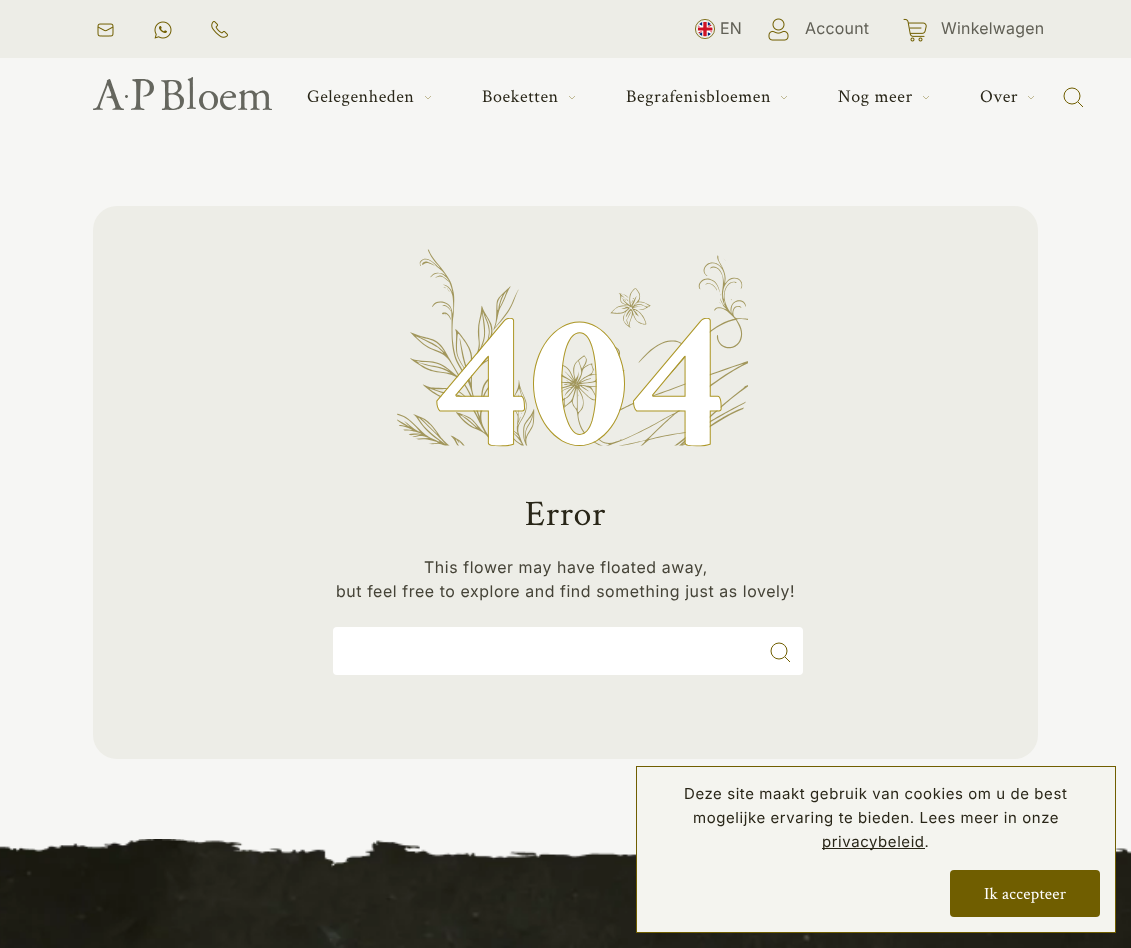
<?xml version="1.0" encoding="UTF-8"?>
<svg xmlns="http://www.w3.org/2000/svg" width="1131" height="948">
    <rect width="100%" height="100%" fill="#F6F6F4"/>
    <rect x="0" y="0" width="1131" height="58" fill="#EDEDE7"/>
    <image x="97" y="23" width="17" height="14" href="img_01.png"/>
    <image x="154" y="21" width="18" height="18" href="img_02.png"/>
    <image x="211" y="21" width="17" height="17" href="img_03.png"/>
    <image x="695" y="19" width="20" height="20" href="img_04.png"/>
    <text x="720" y="34" font-family="Inter" font-size="16" letter-spacing="0.25" fill="#616056">EN</text>
    <image x="768" y="18" width="21" height="23" href="img_05.png"/>
    <text x="805" y="34" font-family="Inter" font-size="16" letter-spacing="0.25" fill="#616056">Account</text>
    <image x="903" y="18" width="24" height="24" href="img_06.png"/>
    <text x="941" y="34" font-family="Inter" font-size="16" letter-spacing="0.25" fill="#616056">Winkelwagen</text>
    <image x="93" y="77" width="179" height="33" href="img_07.png"/>
    <text x="307" y="102" font-family="Crimson Text" font-size="18" letter-spacing="0.6" fill="#292618">Gelegenheden</text>
    <path d="M 425 96 L 428 99 L 431 96" fill="none" stroke="#B3AA7A" stroke-width="0.8"/>
    <text x="482" y="102" font-family="Crimson Text" font-size="18" letter-spacing="0.6" fill="#292618">Boeketten</text>
    <path d="M 569 96 L 572 99 L 575 96" fill="none" stroke="#B3AA7A" stroke-width="0.8"/>
    <text x="626" y="102" font-family="Crimson Text" font-size="18" letter-spacing="0.6" fill="#292618">Begrafenisbloemen</text>
    <path d="M 781 96 L 784 99 L 787 96" fill="none" stroke="#B3AA7A" stroke-width="0.8"/>
    <text x="838" y="102" font-family="Crimson Text" font-size="18" letter-spacing="0.6" fill="#292618">Nog meer</text>
    <path d="M 923 96 L 926 99 L 929 96" fill="none" stroke="#B3AA7A" stroke-width="0.8"/>
    <text x="980" y="102" font-family="Crimson Text" font-size="18" letter-spacing="0.6" fill="#292618">Over</text>
    <path d="M 1028 96 L 1031 99 L 1034 96" fill="none" stroke="#B3AA7A" stroke-width="0.8"/>
    <circle cx="1072" cy="96" r="8" fill="none" stroke="#705E00"/>
    <path d="M 1078 102 L 1083 107" fill="none" stroke="#705E00"/>
    <rect x="93" y="206" width="945" height="553" rx="24" fill="#EDEDE7"/>
    <image x="397" y="249" width="351" height="198" href="img_08.png"/>
    <text x="525" y="525" font-family="Crimson Text" font-size="36" letter-spacing="0.6" fill="#292618">Error</text>
    <text x="424" y="573" font-family="Inter" font-size="16" letter-spacing="0.6" fill="#454337">This flower may have floated away,</text>
    <text x="336" y="597" font-family="Inter" font-size="16" letter-spacing="0.6" fill="#454337">but feel free to explore and find something just as lovely!</text>
    <rect x="333" y="627" width="470" height="48" rx="4" fill="#FFFFFF"/>
    <circle cx="779" cy="651" r="8" fill="none" stroke="#705E00"/>
    <path d="M 785 657 L 790 662" fill="none" stroke="#705E00"/>
    <image x="0" y="839" width="1131" height="109" href="img_09.png"/>
    <rect x="636.5" y="766.5" width="479" height="166" fill="#F4F4EF" stroke="#705E00"/>
    <text x="684" y="799" font-family="'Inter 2'" font-size="15" letter-spacing="0.6" fill="#292618">Deze site maakt gebruik van cookies om u de best</text>
    <text x="693" y="823" font-family="'Inter 2'" font-size="15" letter-spacing="0.6" fill="#292618">mogelijke ervaring te bieden. Lees meer in onze</text>
    <rect x="822" y="848" width="103" height="1" fill="#292618"/>
    <text x="822" y="847" font-family="'Inter 2'" font-size="15" letter-spacing="0.6" fill="#292618">privacybeleid.</text>
    <rect x="950" y="870" width="150" height="47" rx="4" fill="#705E00"/>
    <text x="984" y="899" font-family="Crimson Text" font-size="17" letter-spacing="0.25" fill="#FFFFFF">Ik accepteer</text>
</svg>
